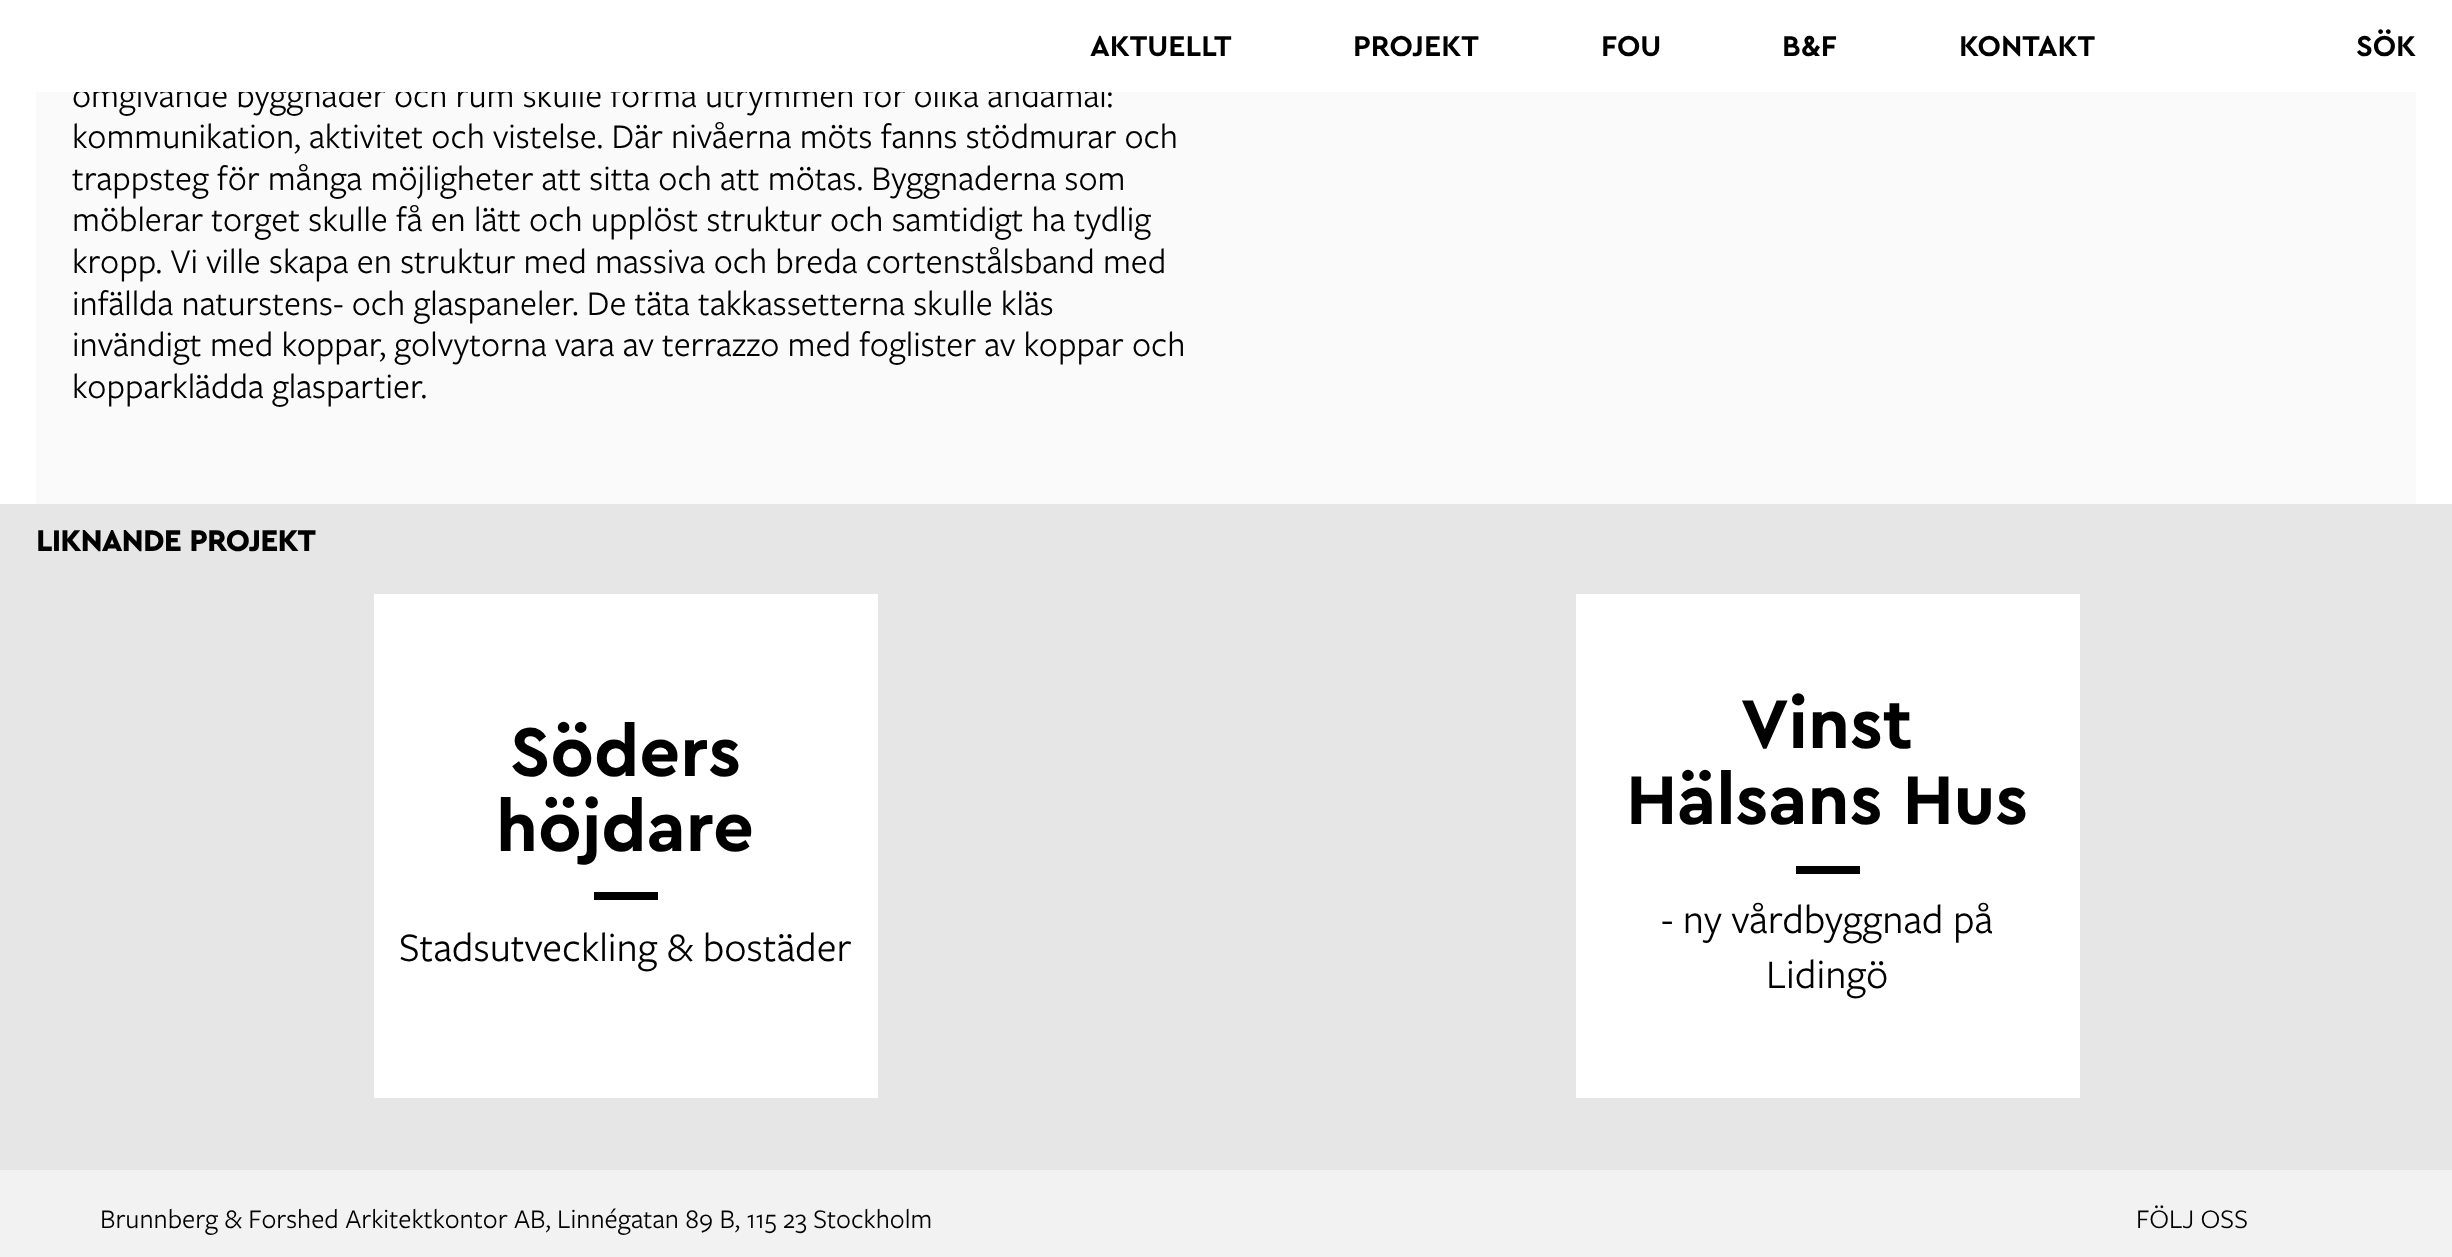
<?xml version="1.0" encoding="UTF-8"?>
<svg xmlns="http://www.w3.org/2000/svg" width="2452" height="1257">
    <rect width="100%" height="100%" fill="#FAFAFA"/>
    <text x="72" y="107" font-family="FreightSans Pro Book" font-size="36" fill="#000000">omgivande byggnader och rum skulle forma utrymmen för olika ändamål:</text>
    <rect x="0" y="0" width="2452" height="92" fill="#FFFFFF"/>
    <text x="1090" y="56" font-family="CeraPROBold" font-size="30" fill="#000000">AKTUELLT</text>
    <text x="1353" y="56" font-family="CeraPROBold" font-size="30" fill="#000000">PROJEKT</text>
    <text x="1601" y="56" font-family="CeraPROBold" font-size="30" fill="#000000">FOU</text>
    <text x="1782" y="56" font-family="CeraPROBold" font-size="30" fill="#000000">B&amp;F</text>
    <text x="1959" y="56" font-family="CeraPROBold" font-size="30" fill="#000000">KONTAKT</text>
    <text x="2356" y="56" font-family="CeraPROBold" font-size="30" fill="#000000">SÖK</text>
    <rect x="2416" y="92" width="36" height="412" fill="#FFFFFF"/>
    <rect x="0" y="92" width="36" height="412" fill="#FFFFFF"/>
    <text font-family="FreightSans Pro Book" font-size="36" fill="#000000">
        <tspan x="72" y="148">kommunikation, aktivitet och vistelse. Där nivåerna möts fanns stödmurar och</tspan>
        <tspan x="72" y="190">trappsteg för många möjligheter att sitta och att mötas. Byggnaderna som</tspan>
        <tspan x="72" y="231">möblerar torget skulle få en lätt och upplöst struktur och samtidigt ha tydlig</tspan>
        <tspan x="72" y="273">kropp. Vi ville skapa en struktur med massiva och breda cortenstålsband med</tspan>
        <tspan x="72" y="315">infällda naturstens- och glaspaneler. De täta takkassetterna skulle kläs</tspan>
        <tspan x="72" y="356">invändigt med koppar, golvytorna vara av terrazzo med foglister av koppar och</tspan>
        <tspan x="72" y="398">kopparklädda glaspartier.</tspan>
    </text>
    <rect x="0" y="504" width="2452" height="666" fill="#E6E6E6"/>
    <text x="36" y="551" font-family="CeraPROBold" font-size="30" font-weight="700" fill="#000000">LIKNANDE PROJEKT</text>
    <rect x="374" y="594" width="504" height="504" fill="#FFFFFF"/>
    <text x="510" y="776" font-family="CeraPROBold" font-size="72" fill="#000000">Söders</text>
    <text x="496" y="851" font-family="CeraPROBold" font-size="72" fill="#000000">höjdare</text>
    <rect x="594" y="892" width="64" height="8" fill="#000000"/>
    <text x="399" y="961" font-family="FreightSans Pro Book" font-size="42" fill="#000000">Stadsutveckling &amp; bostäder</text>
    <rect x="1576" y="594" width="504" height="504" fill="#FFFFFF"/>
    <text x="1741" y="748" font-family="CeraPROBold" font-size="72" fill="#000000">Vinst</text>
    <text x="1626" y="824" font-family="CeraPROBold" font-size="72" fill="#000000">Hälsans Hus</text>
    <rect x="1796" y="866" width="64" height="8" fill="#000000"/>
    <text x="1661" y="933" font-family="FreightSans Pro Book" font-size="42" fill="#000000">- ny vårdbyggnad på</text>
    <text x="1766" y="988" font-family="FreightSans Pro Book" font-size="42" fill="#000000">Lidingö</text>
    <rect x="0" y="1170" width="2452" height="87" fill="#F2F2F2"/>
    <text x="100" y="1228" font-family="FreightSans Pro Book" font-size="28" fill="#000000">Brunnberg &amp; Forshed Arkitektkontor AB, Linnégatan 89 B, 115 23 Stockholm</text>
    <text x="2136" y="1228" font-family="FreightSans Pro Book" font-size="28" fill="#000000">FÖLJ OSS</text>
</svg>
